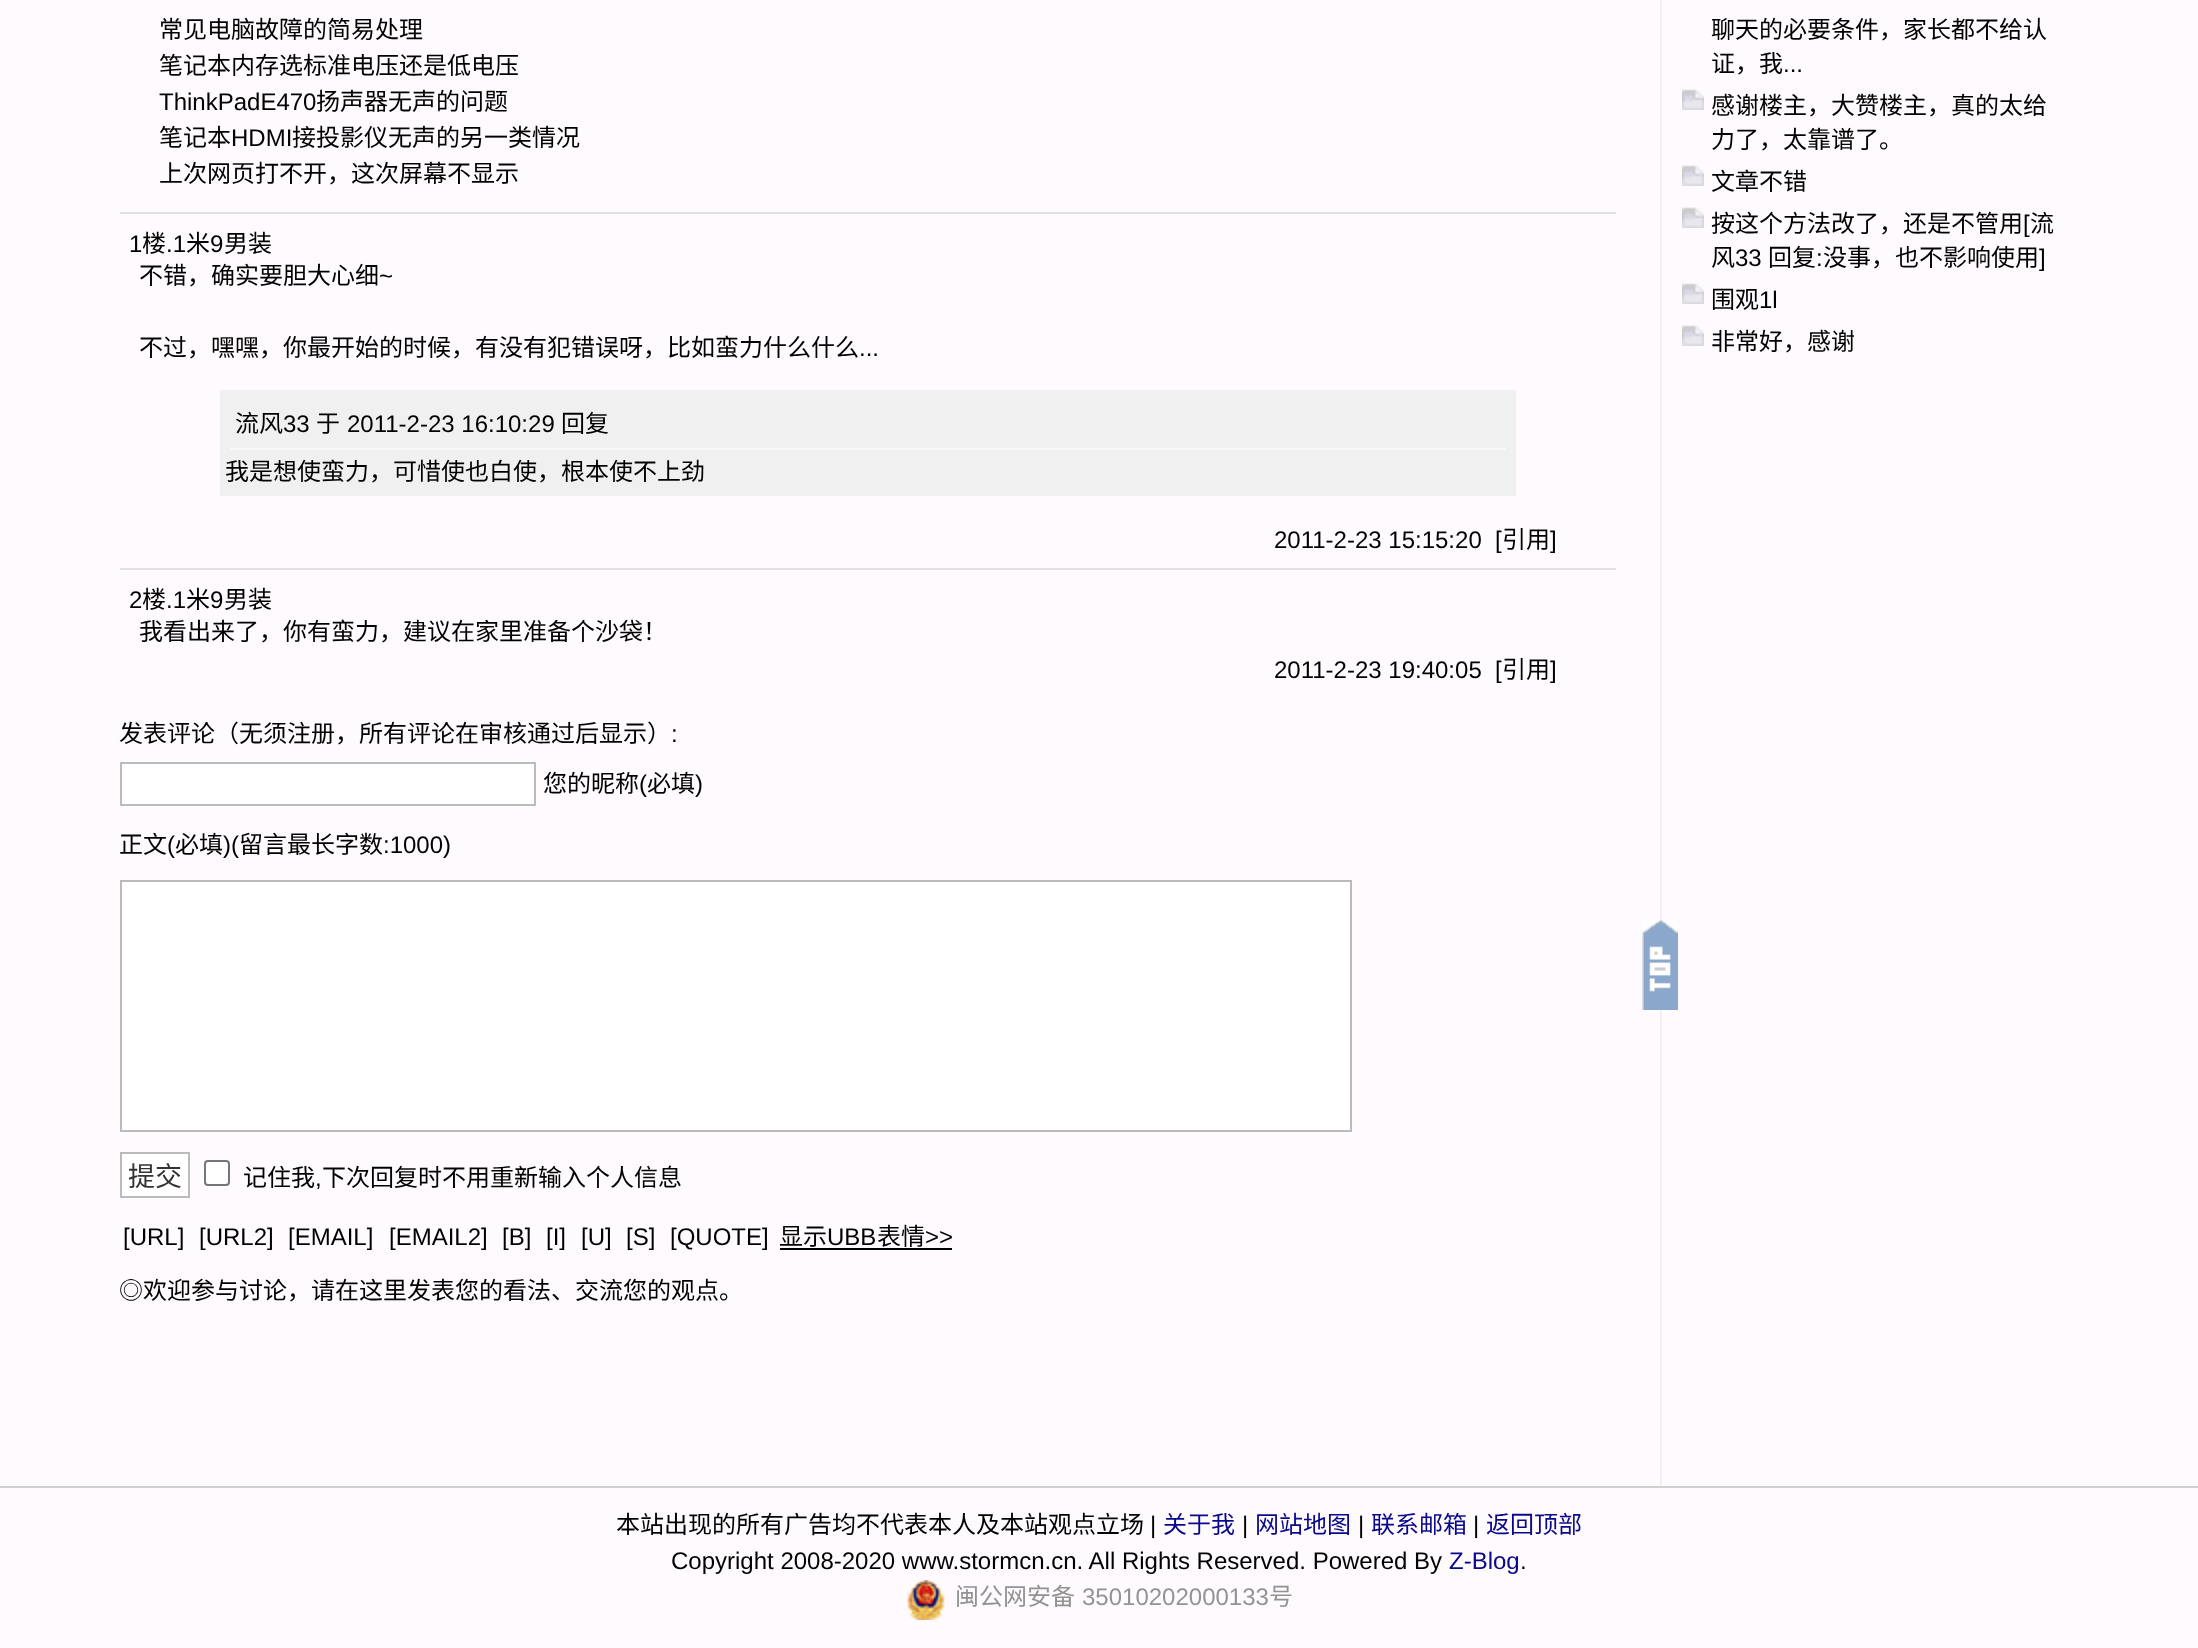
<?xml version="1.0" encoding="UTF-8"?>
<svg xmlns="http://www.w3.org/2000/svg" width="2198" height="1648">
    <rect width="100%" height="100%" fill="#FEFAFD"/>
    <rect x="1660" y="0" width="2" height="1486" fill="#F3F0F0"/>
    <text font-family="Noto Sans CJK SC" font-size="24" fill="#000000">
        <tspan x="159" y="38">常见电脑故障的简易处理</tspan>
        <tspan x="159" y="74">笔记本内存选标准电压还是低电压</tspan>
    </text>
    <text x="159" y="110" font-family="Liberation Sans" font-size="24" fill="#000000">ThinkPadE470</text>
    <text x="316" y="110" font-family="Noto Sans CJK SC" font-size="24" fill="#000000">扬声器无声的问题</text>
    <text x="159" y="146" font-family="Noto Sans CJK SC" font-size="24" fill="#000000">笔记本</text>
    <text x="231" y="146" font-family="Liberation Sans" font-size="24" fill="#000000">HDMI</text>
    <text x="292" y="146" font-family="Noto Sans CJK SC" font-size="24" fill="#000000">接投影仪无声的另一类情况</text>
    <text x="159" y="182" font-family="Noto Sans CJK SC" font-size="24" fill="#000000">上次网页打不开，这次屏幕不显示</text>
    <rect x="120" y="212" width="1496" height="2" fill="#E0E0E0"/>
    <text x="129" y="252" font-family="Liberation Sans" font-size="24" fill="#000000">1</text>
    <text x="142" y="252" font-family="Noto Sans CJK SC" font-size="24" fill="#000000">楼</text>
    <text x="166" y="252" font-family="Liberation Sans" font-size="24" fill="#000000">.1</text>
    <text x="186" y="252" font-family="Noto Sans CJK SC" font-size="24" fill="#000000">米</text>
    <text x="210" y="252" font-family="Liberation Sans" font-size="24" fill="#000000">9</text>
    <text x="224" y="252" font-family="Noto Sans CJK SC" font-size="24" fill="#000000">男装</text>
    <text x="139" y="284" font-family="Noto Sans CJK SC" font-size="24" fill="#000000">不错，确实要胆大心细</text>
    <text x="379" y="284" font-family="Liberation Sans" font-size="24" fill="#000000">~</text>
    <text x="139" y="356" font-family="Noto Sans CJK SC" font-size="24" fill="#000000">不过，嘿嘿，你最开始的时候，有没有犯错误呀，比如蛮力什么什么</text>
    <text x="859" y="356" font-family="Liberation Sans" font-size="24" fill="#000000">...</text>
    <rect x="220" y="390" width="1296" height="106" fill="#F0F0F0"/>
    <rect x="230" y="448" width="1276" height="2" fill="#F8F8F8"/>
    <text x="235" y="432" font-family="Noto Sans CJK SC" font-size="24" fill="#000000">流风</text>
    <text x="283" y="432" font-family="Liberation Sans" font-size="24" fill="#000000">33</text>
    <text x="316" y="432" font-family="Noto Sans CJK SC" font-size="24" fill="#000000">于</text>
    <text x="347" y="432" font-family="Liberation Sans" font-size="24" fill="#000000">2011-2-23 16:10:29</text>
    <text x="561" y="432" font-family="Noto Sans CJK SC" font-size="24" fill="#000000">回复</text>
    <text x="225" y="480" font-family="Noto Sans CJK SC" font-size="24" fill="#000000">我是想使蛮力，可惜使也白使，根本使不上劲</text>
    <text x="1274" y="548" font-family="Liberation Sans" font-size="24" fill="#000000" xml:space="preserve">2011-2-23 15:15:20  [</text>
    <text x="1502" y="548" font-family="Noto Sans CJK SC" font-size="24" fill="#000000">引用</text>
    <text x="1550" y="548" font-family="Liberation Sans" font-size="24" fill="#000000">]</text>
    <rect x="120" y="568" width="1496" height="2" fill="#E0E0E0"/>
    <text x="129" y="608" font-family="Liberation Sans" font-size="24" fill="#000000">2</text>
    <text x="142" y="608" font-family="Noto Sans CJK SC" font-size="24" fill="#000000">楼</text>
    <text x="166" y="608" font-family="Liberation Sans" font-size="24" fill="#000000">.1</text>
    <text x="186" y="608" font-family="Noto Sans CJK SC" font-size="24" fill="#000000">米</text>
    <text x="210" y="608" font-family="Liberation Sans" font-size="24" fill="#000000">9</text>
    <text x="224" y="608" font-family="Noto Sans CJK SC" font-size="24" fill="#000000">男装</text>
    <text x="139" y="640" font-family="Noto Sans CJK SC" font-size="24" fill="#000000">我看出来了，你有蛮力，建议在家里准备个沙袋！</text>
    <text x="1274" y="678" font-family="Liberation Sans" font-size="24" fill="#000000" xml:space="preserve">2011-2-23 19:40:05  [</text>
    <text x="1502" y="678" font-family="Noto Sans CJK SC" font-size="24" fill="#000000">引用</text>
    <text x="1550" y="678" font-family="Liberation Sans" font-size="24" fill="#000000">]</text>
    <text x="119" y="742" font-family="Noto Sans CJK SC" font-size="24" fill="#000000">发表评论（无须注册，所有评论在审核通过后显示）</text>
    <text x="671" y="742" font-family="Liberation Sans" font-size="24" fill="#000000">:</text>
    <rect x="121" y="763" width="414" height="42" fill="#FFFFFF" stroke="#BBBBBB" stroke-width="2"/>
    <text x="543" y="792" font-family="Noto Sans CJK SC" font-size="24" fill="#000000">您的昵称</text>
    <text x="639" y="792" font-family="Liberation Sans" font-size="24" fill="#000000">(</text>
    <text x="647" y="792" font-family="Noto Sans CJK SC" font-size="24" fill="#000000">必填</text>
    <text x="695" y="792" font-family="Liberation Sans" font-size="24" fill="#000000">)</text>
    <text x="119" y="853" font-family="Noto Sans CJK SC" font-size="24" fill="#000000">正文</text>
    <text x="167" y="853" font-family="Liberation Sans" font-size="24" fill="#000000">(</text>
    <text x="175" y="853" font-family="Noto Sans CJK SC" font-size="24" fill="#000000">必填</text>
    <text x="223" y="853" font-family="Liberation Sans" font-size="24" fill="#000000">)(</text>
    <text x="239" y="853" font-family="Noto Sans CJK SC" font-size="24" fill="#000000">留言最长字数</text>
    <text x="383" y="853" font-family="Liberation Sans" font-size="24" fill="#000000">:1000)</text>
    <rect x="121" y="881" width="1230" height="250" fill="#FFFFFF" stroke="#BBBBBB" stroke-width="2"/>
    <rect x="121" y="1153" width="68" height="44" fill="#FFFFFF" stroke="#BBBBBB" stroke-width="2"/>
    <text x="128" y="1186" font-family="Noto Sans CJK SC" font-size="27" fill="#333333">提交</text>
    <rect x="205" y="1161" width="24" height="24" rx="3" fill="#FFFFFF" stroke="#767676" stroke-width="2"/>
    <text x="243" y="1186" font-family="Noto Sans CJK SC" font-size="24" fill="#000000">记住我</text>
    <text x="315" y="1186" font-family="Liberation Sans" font-size="24" fill="#000000">,</text>
    <text x="322" y="1186" font-family="Noto Sans CJK SC" font-size="24" fill="#000000">下次回复时不用重新输入个人信息</text>
    <text x="123" y="1245" font-family="Liberation Sans" font-size="24" fill="#000000">[URL]</text>
    <text x="199" y="1245" font-family="Liberation Sans" font-size="24" fill="#000000">[URL2]</text>
    <text x="288" y="1245" font-family="Liberation Sans" font-size="24" fill="#000000">[EMAIL]</text>
    <text x="389" y="1245" font-family="Liberation Sans" font-size="24" fill="#000000">[EMAIL2]</text>
    <text x="502" y="1245" font-family="Liberation Sans" font-size="24" fill="#000000">[B]</text>
    <text x="546" y="1245" font-family="Liberation Sans" font-size="24" fill="#000000">[I]</text>
    <text x="581" y="1245" font-family="Liberation Sans" font-size="24" fill="#000000">[U]</text>
    <text x="626" y="1245" font-family="Liberation Sans" font-size="24" fill="#000000">[S]</text>
    <text x="670" y="1245" font-family="Liberation Sans" font-size="24" fill="#000000">[QUOTE]</text>
    <text x="779" y="1245" font-family="Noto Sans CJK SC" font-size="24" fill="#000000">显示</text>
    <text x="827" y="1245" font-family="Liberation Sans" font-size="24" fill="#000000">UBB</text>
    <text x="877" y="1245" font-family="Noto Sans CJK SC" font-size="24" fill="#000000">表情</text>
    <text x="925" y="1245" font-family="Liberation Sans" font-size="24" fill="#000000">&gt;&gt;</text>
    <rect x="780" y="1248" width="172" height="2" fill="#000000"/>
    <text x="119" y="1299" font-family="Noto Sans CJK SC" font-size="24" fill="#000000">◎欢迎参与讨论，请在这里发表您的看法、交流您的观点。</text>
    <text font-family="Noto Sans CJK SC" font-size="24" fill="#000000">
        <tspan x="1711" y="38">聊天的必要条件，家长都不给认</tspan>
        <tspan x="1711" y="72">证，我</tspan>
    </text>
    <text x="1783" y="72" font-family="Liberation Sans" font-size="24" fill="#000000">...</text>
    <image x="1682" y="89" width="22" height="21" href="img_01.png"/>
    <text font-family="Noto Sans CJK SC" font-size="24" fill="#000000">
        <tspan x="1711" y="114">感谢楼主，大赞楼主，真的太给</tspan>
        <tspan x="1711" y="148">力了，太靠谱了。</tspan>
    </text>
    <image x="1682" y="165" width="22" height="21" href="img_01.png"/>
    <text x="1711" y="190" font-family="Noto Sans CJK SC" font-size="24" fill="#000000">文章不错</text>
    <image x="1682" y="207" width="22" height="21" href="img_01.png"/>
    <text x="1711" y="232" font-family="Noto Sans CJK SC" font-size="24" fill="#000000">按这个方法改了，还是不管用</text>
    <text x="2023" y="232" font-family="Liberation Sans" font-size="24" fill="#000000">[</text>
    <text x="2030" y="232" font-family="Noto Sans CJK SC" font-size="24" fill="#000000">流</text>
    <text x="1711" y="266" font-family="Noto Sans CJK SC" font-size="24" fill="#000000">风</text>
    <text x="1735" y="266" font-family="Liberation Sans" font-size="24" fill="#000000">33</text>
    <text x="1768" y="266" font-family="Noto Sans CJK SC" font-size="24" fill="#000000">回复</text>
    <text x="1816" y="266" font-family="Liberation Sans" font-size="24" fill="#000000">:</text>
    <text x="1823" y="266" font-family="Noto Sans CJK SC" font-size="24" fill="#000000">没事，也不影响使用</text>
    <text x="2039" y="266" font-family="Liberation Sans" font-size="24" fill="#000000">]</text>
    <image x="1682" y="283" width="22" height="21" href="img_01.png"/>
    <text x="1711" y="308" font-family="Noto Sans CJK SC" font-size="24" fill="#000000">围观</text>
    <text x="1759" y="308" font-family="Liberation Sans" font-size="24" fill="#000000">1l</text>
    <image x="1682" y="325" width="22" height="21" href="img_01.png"/>
    <text x="1711" y="350" font-family="Noto Sans CJK SC" font-size="24" fill="#000000">非常好，感谢</text>
    <image x="1642" y="920" width="36" height="90" href="img_02.png"/>
    <rect x="0" y="1486" width="2198" height="2" fill="#D0D0D0"/>
    <text x="616" y="1533" font-family="Noto Sans CJK SC" font-size="24" fill="#000000">本站出现的所有广告均不代表本人及本站观点立场</text>
    <text x="1150" y="1533" font-family="Liberation Sans" font-size="24" fill="#000000">|</text>
    <text x="1163" y="1533" font-family="Noto Sans CJK SC" font-size="24" fill="#08088A">关于我</text>
    <text x="1242" y="1533" font-family="Liberation Sans" font-size="24" fill="#000000">|</text>
    <text x="1255" y="1533" font-family="Noto Sans CJK SC" font-size="24" fill="#08088A">网站地图</text>
    <text x="1358" y="1533" font-family="Liberation Sans" font-size="24" fill="#000000">|</text>
    <text x="1371" y="1533" font-family="Noto Sans CJK SC" font-size="24" fill="#08088A">联系邮箱</text>
    <text x="1473" y="1533" font-family="Liberation Sans" font-size="24" fill="#000000">|</text>
    <text x="1486" y="1533" font-family="Noto Sans CJK SC" font-size="24" fill="#08088A">返回顶部</text>
    <text x="671" y="1569" font-family="Liberation Sans" font-size="24" fill="#000000">Copyright 2008-2020 www.stormcn.cn. All Rights Reserved. Powered By</text>
    <text x="1449" y="1569" font-family="Liberation Sans" font-size="24" fill="#08088A">Z-Blog</text>
    <text x="1520" y="1569" font-family="Liberation Sans" font-size="24" fill="#000000">.</text>
    <image x="907" y="1580" width="38" height="40" href="img_03.png"/>
    <text x="955" y="1605" font-family="Noto Sans CJK SC" font-size="24" fill="#939393">闽公网安备</text>
    <text x="1082" y="1605" font-family="Liberation Sans" font-size="24" fill="#939393">35010202000133</text>
    <text x="1269" y="1605" font-family="Noto Sans CJK SC" font-size="24" fill="#939393">号</text>
</svg>
